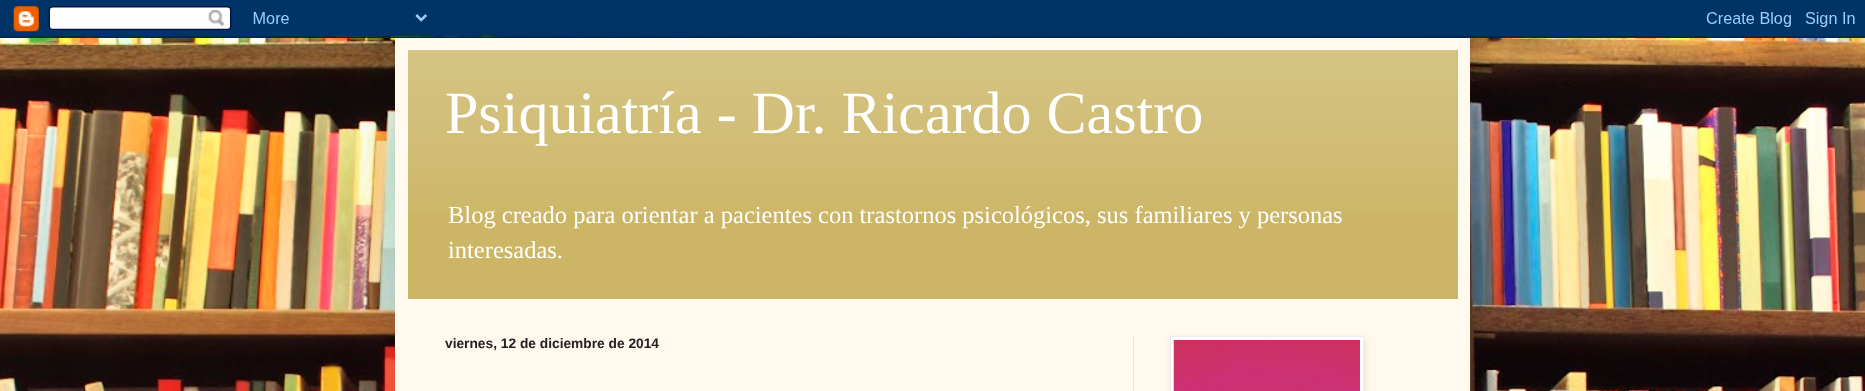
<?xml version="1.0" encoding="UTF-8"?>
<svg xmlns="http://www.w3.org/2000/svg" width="1865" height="391">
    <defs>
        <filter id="blur1" x="-50%" y="-200%" width="200%" height="500%"><feGaussianBlur stdDeviation="25"/></filter>
        <filter id="blur2" x="-50%" y="-200%" width="200%" height="500%"><feGaussianBlur stdDeviation="3"/></filter>
    </defs>
    <rect width="100%" height="100%" fill="#FFFFFF"/>
    <image x="0" y="36" width="1865" height="355" href="img_01.png"/>
    <rect x="395" y="38" width="1075" height="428" fill="#000000" fill-opacity="0.15" filter="url(#blur1)"/>
    <image x="0" y="0" width="1865" height="38" href="img_02.png"/>
    <rect x="395" y="38" width="1075" height="353" fill="#FFF9EE"/>
    <rect x="408" y="50" width="1050" height="249" fill="#CCB666"/>
    <image x="408" y="50" width="1050" height="163" href="img_03.png"/>
    <text x="445" y="133" font-family="Liberation Serif" font-size="60" fill="#FFFFFF">Psiquiatría - Dr. Ricardo Castro</text>
    <text font-family="Liberation Serif" font-size="24.5" fill="#FFFFFF">
        <tspan x="448" y="223">Blog creado para orientar a pacientes con trastornos psicológicos, sus familiares y personas</tspan>
        <tspan x="448" y="258">interesadas.</tspan>
    </text>
    <text x="445" y="348" font-family="Liberation Sans" font-size="13.75" font-weight="700" fill="#222222">viernes, 12 de diciembre de 2014</text>
    <rect x="1171" y="338" width="194" height="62" fill="#000000" fill-opacity="0.1" filter="url(#blur2)"/>
    <rect x="1170.5" y="336.5" width="193" height="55" fill="#FFFFFF" stroke="#EEEEEE"/>
    <image x="1173" y="340" width="187" height="51" href="img_04.png"/>
    <rect x="1133" y="336" width="1" height="55" fill="#EEE5DD"/>
</svg>
